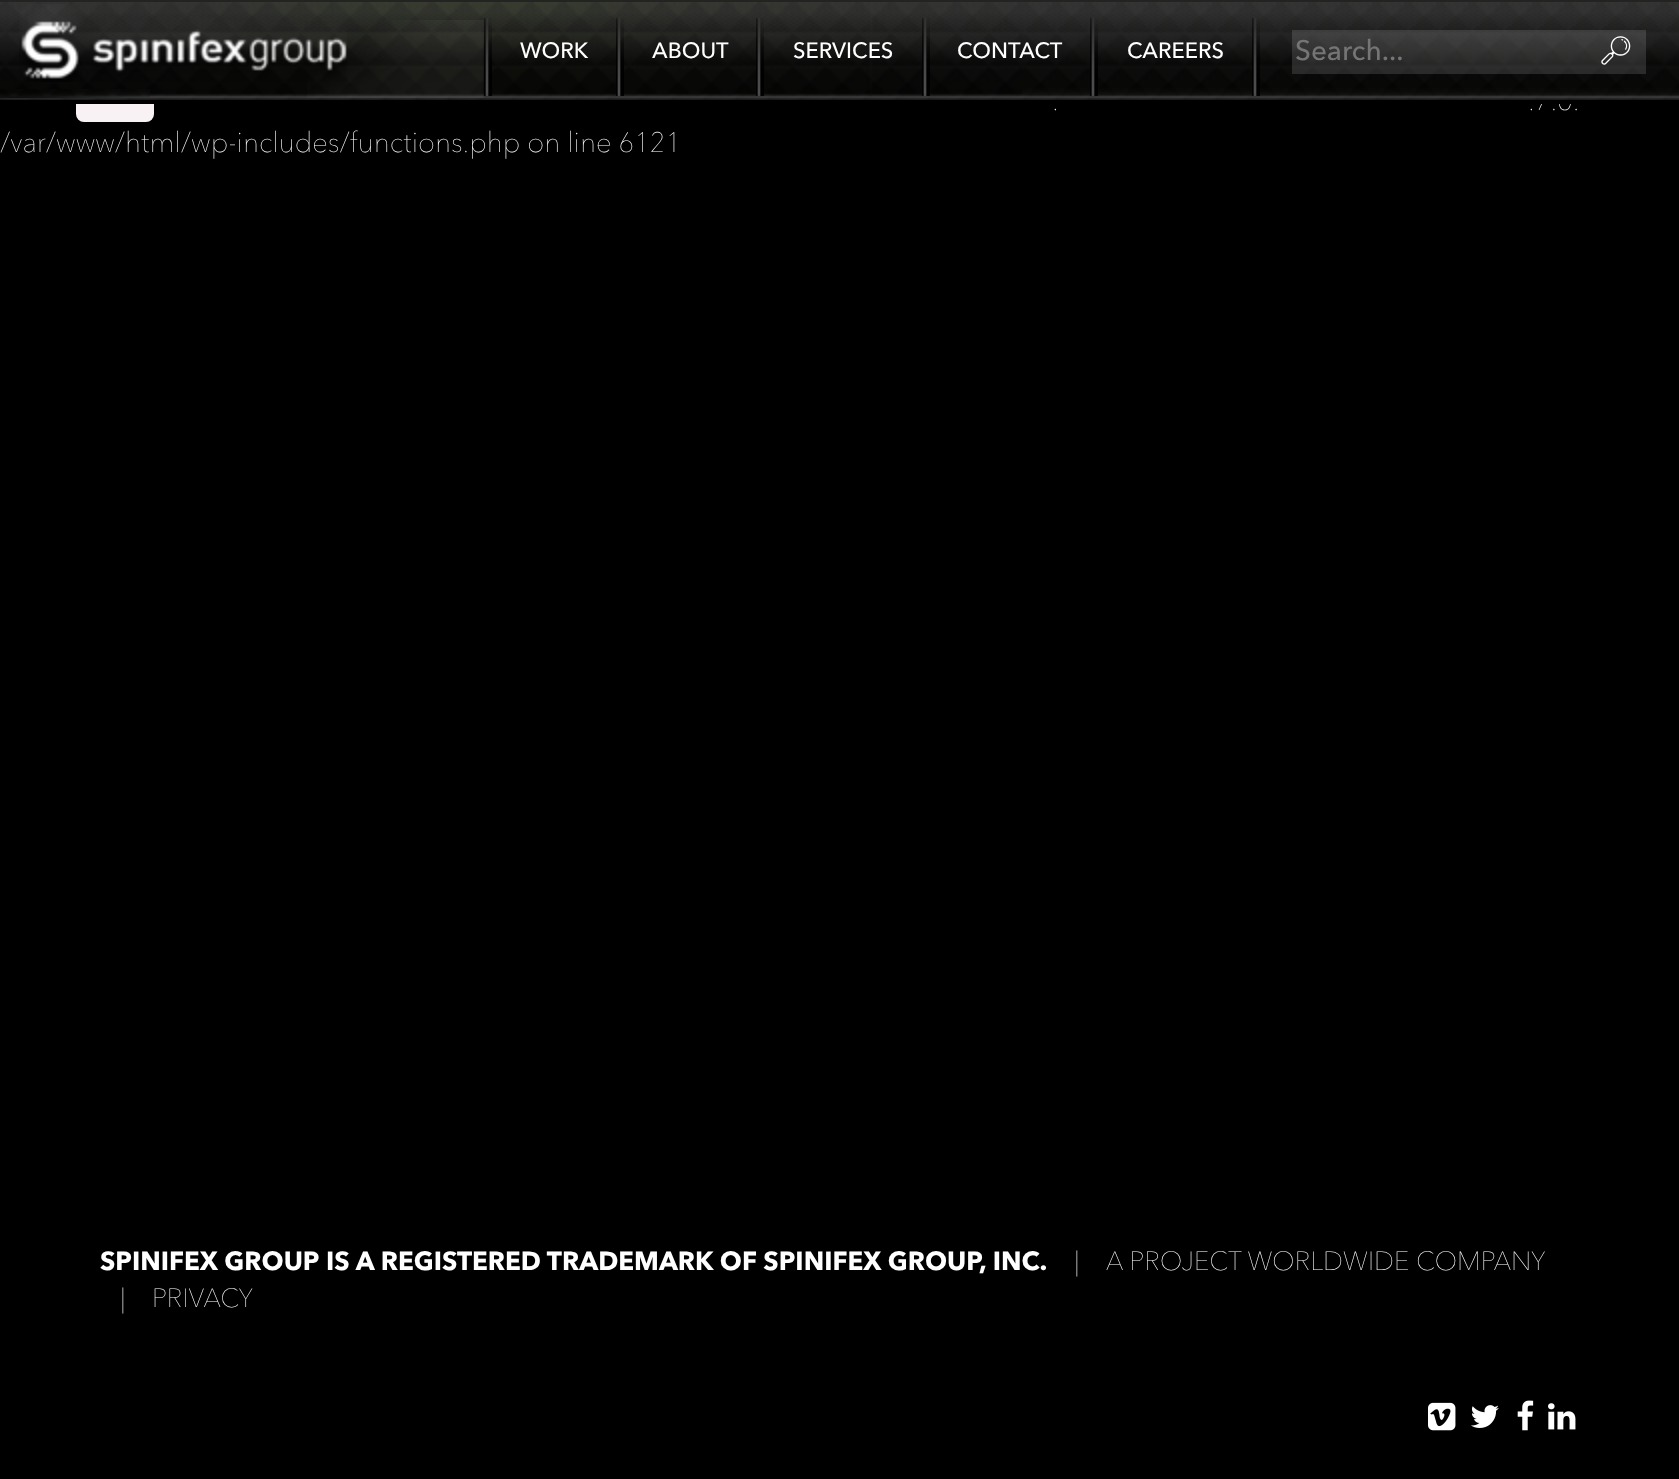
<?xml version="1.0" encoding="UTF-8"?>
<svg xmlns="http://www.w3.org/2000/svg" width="1679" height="1479">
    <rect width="100%" height="100%" fill="#000000"/>
    <rect x="76" y="86" width="78" height="36" rx="8" fill="#F9F2F4"/>
    <text x="1528" y="110" font-family="Avenir Next" font-size="28" font-weight="300" fill="#FFFFFF">.7.0.</text>
    <rect x="76" y="100" width="1496" height="4" fill="#000000"/>
    <image x="0" y="2" width="1679" height="98" href="img_01.png"/>
    <rect x="0" y="0" width="1679" height="2" fill="#232322"/>
    <image x="0" y="2" width="1022" height="92" href="img_02.png"/>
    <image x="307" y="20" width="177" height="78" href="img_05.png"/>
    <image x="19" y="4" width="328" height="78" href="img_03.png"/>
    <image x="0" y="89" width="150" height="9" href="img_04.png"/>
    <image x="484" y="18" width="8" height="78" href="img_06.png"/>
    <text x="520" y="58" font-family="Avenir Next" font-size="22" font-weight="500" fill="#FFFFFF">WORK</text>
    <image x="616" y="18" width="8" height="78" href="img_07.png"/>
    <text x="652" y="58" font-family="Avenir Next" font-size="22" font-weight="500" fill="#FFFFFF">ABOUT</text>
    <image x="756" y="18" width="8" height="78" href="img_08.png"/>
    <text x="793" y="58" font-family="Avenir Next" font-size="22" font-weight="500" fill="#FFFFFF">SERVICES</text>
    <image x="922" y="18" width="8" height="78" href="img_09.png"/>
    <text x="957" y="58" font-family="Avenir Next" font-size="22" font-weight="500" fill="#FFFFFF">CONTACT</text>
    <image x="1090" y="18" width="8" height="78" href="img_10.png"/>
    <text x="1127" y="58" font-family="Avenir Next" font-size="22" font-weight="500" fill="#FFFFFF">CAREERS</text>
    <image x="1252" y="18" width="8" height="78" href="img_11.png"/>
    <rect x="1292" y="30" width="354" height="44" fill="#FFFFFF" fill-opacity="0.13"/>
    <text x="1295" y="60" font-family="Avenir Next" font-size="28" font-weight="500" fill="#757575">Search...</text>
    <text x="1598" y="60" font-family="Noto Emoji" font-size="28" font-weight="500" fill="#FFFFFF">🔎︎</text>
    <text x="1052" y="110" font-family="Avenir Next" font-size="28" font-weight="300" fill="#FFFFFF">.</text>
    <text x="0" y="152" font-family="Avenir Next" font-size="28" font-weight="300" fill="#FFFFFF">/var/www/html/wp-includes/functions.php on line 6121</text>
    <text x="100" y="1270" font-family="Avenir Next" font-size="26" font-weight="700" fill="#FFFFFF">SPINIFEX GROUP IS A REGISTERED TRADEMARK OF SPINIFEX GROUP, INC.</text>
    <text x="1074" y="1270" font-family="Avenir Next" font-size="26" font-weight="300" fill="#FFFFFF">|</text>
    <text x="1106" y="1270" font-family="Avenir Next" font-size="26" font-weight="300" fill="#FFFFFF">A PROJECT WORLDWIDE COMPANY</text>
    <text x="120" y="1307" font-family="Avenir Next" font-size="26" font-weight="300" fill="#FFFFFF">|</text>
    <text x="152" y="1307" font-family="Avenir Next" font-size="26" font-weight="300" fill="#FFFFFF">PRIVACY</text>
    <image x="1428" y="1402" width="28" height="29" href="img_12.png"/>
    <image x="1471" y="1405" width="28" height="23" href="img_13.png"/>
    <image x="1517" y="1400" width="17" height="31" href="img_14.png"/>
    <image x="1548" y="1403" width="28" height="27" href="img_15.png"/>
</svg>
